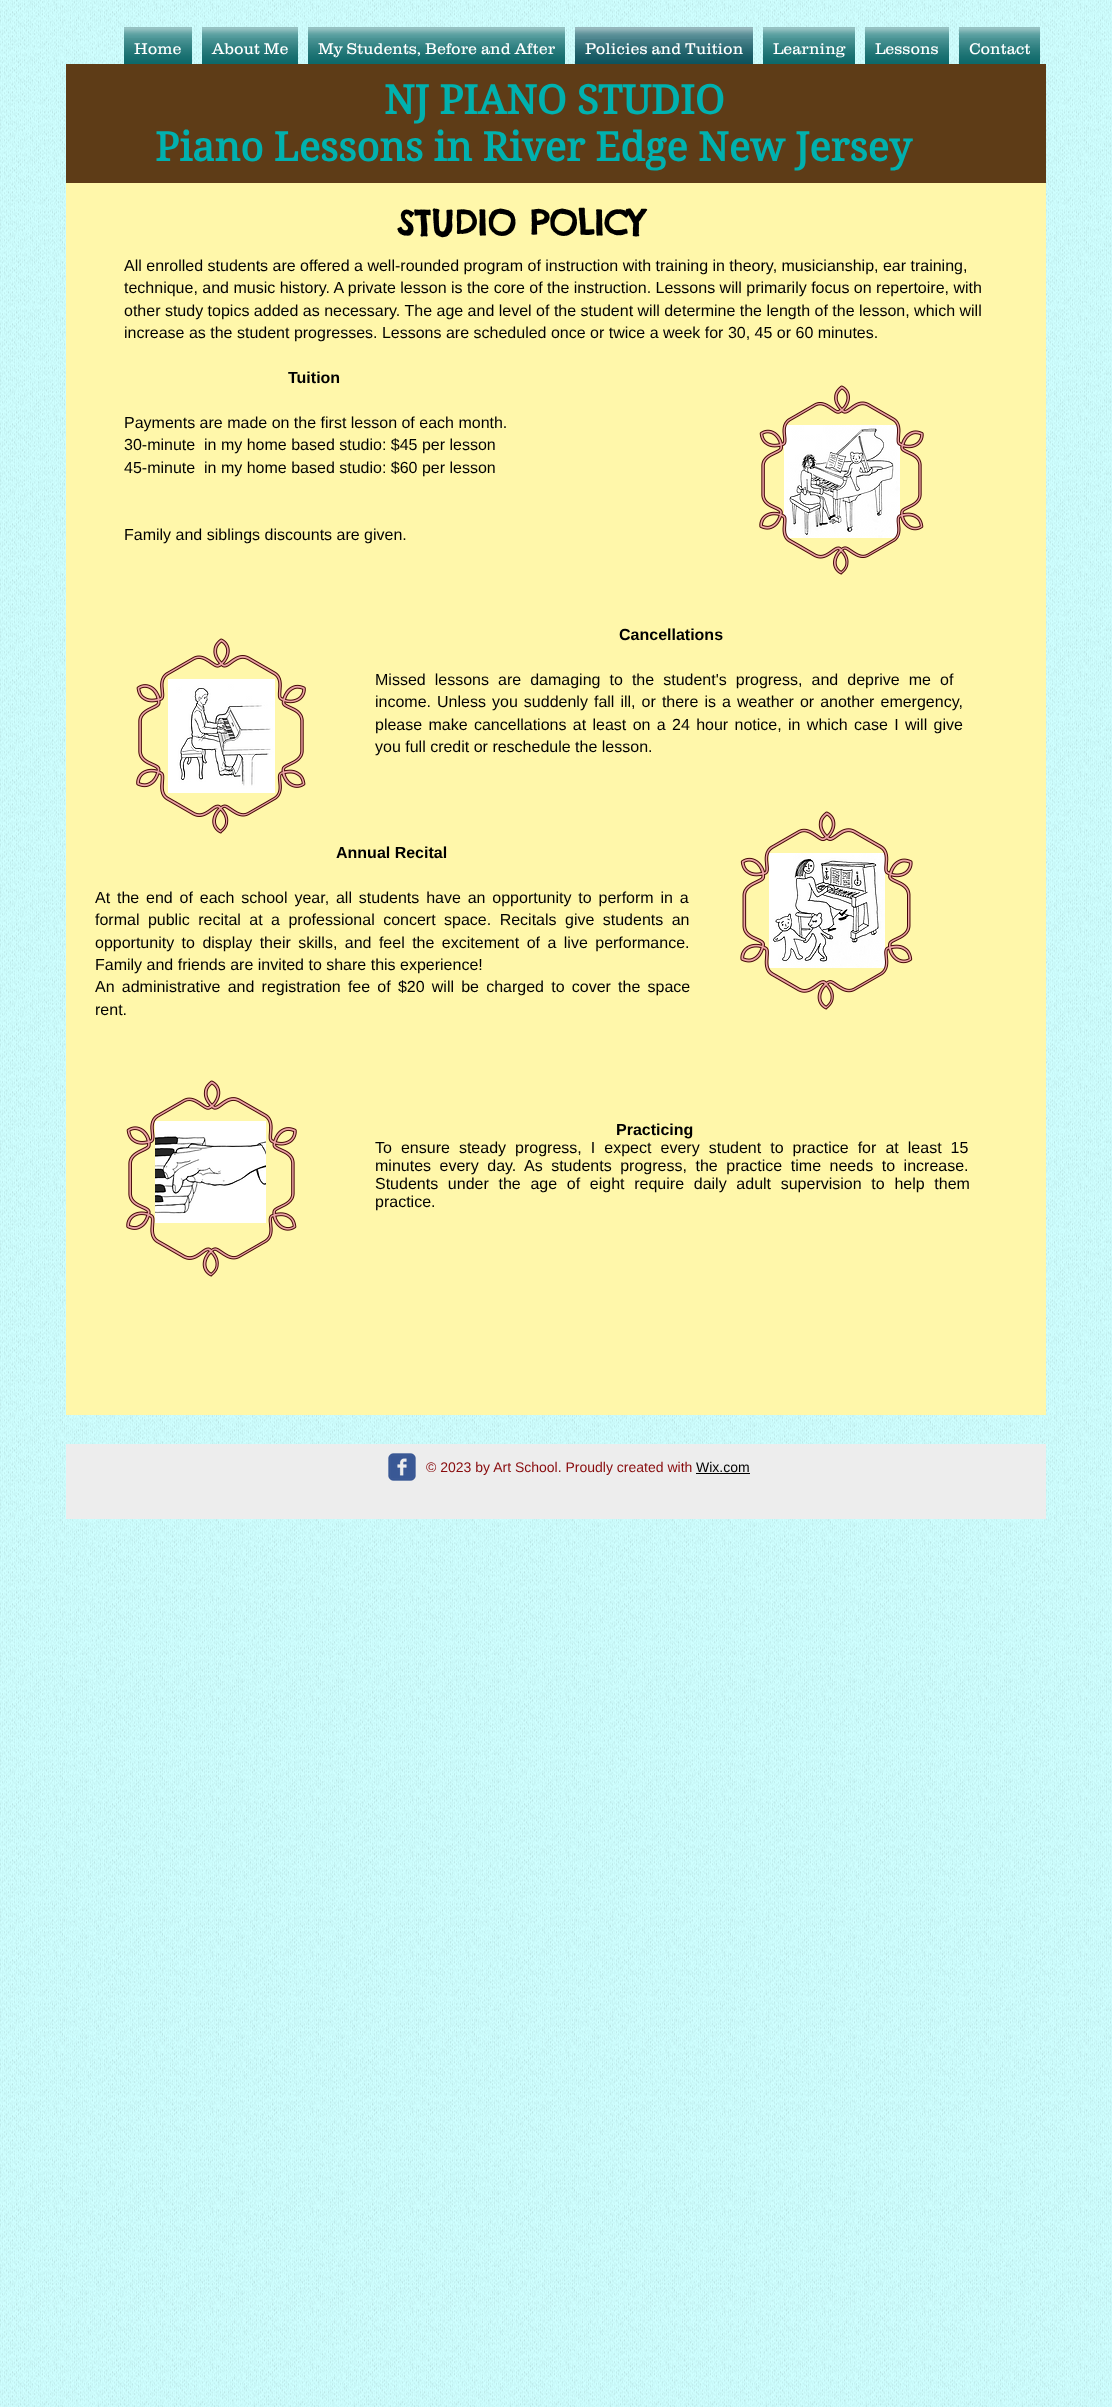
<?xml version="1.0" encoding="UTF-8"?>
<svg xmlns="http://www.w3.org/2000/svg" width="1112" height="2407">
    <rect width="100%" height="100%" fill="#CFFFFF"/>
    <image x="0" y="0" width="1112" height="2407" href="img_01.png"/>
    <rect x="124" y="27" width="68" height="37" fill="#006C6D"/>
    <image x="124" y="27" width="68" height="37" href="img_02.png"/>
    <image x="124" y="38" width="68" height="26" href="img_03.png"/>
    <text x="134" y="54" font-family="'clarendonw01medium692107'" font-size="16" font-weight="300" fill="#FFFFFF">Home</text>
    <rect x="202" y="27" width="96" height="37" fill="#006C6D"/>
    <image x="202" y="27" width="96" height="37" href="img_04.png"/>
    <image x="202" y="38" width="96" height="26" href="img_05.png"/>
    <text x="212" y="54" font-family="'clarendonw01medium692107'" font-size="16" font-weight="300" fill="#FFFFFF">About Me</text>
    <rect x="308" y="27" width="257" height="37" fill="#006C6D"/>
    <image x="308" y="27" width="257" height="37" href="img_06.png"/>
    <image x="308" y="38" width="257" height="26" href="img_07.png"/>
    <text x="318" y="54" font-family="'clarendonw01medium692107'" font-size="16" font-weight="300" fill="#FFFFFF">My Students, Before and After</text>
    <rect x="575" y="27" width="178" height="37" fill="#00535F"/>
    <image x="575" y="27" width="178" height="37" href="img_08.png"/>
    <image x="575" y="39" width="178" height="25" href="img_09.png"/>
    <text x="585" y="54" font-family="'clarendonw01medium692107'" font-size="16" font-weight="300" fill="#FFFFFF">Policies and Tuition</text>
    <rect x="763" y="27" width="92" height="37" fill="#006C6D"/>
    <image x="763" y="27" width="92" height="37" href="img_10.png"/>
    <image x="763" y="38" width="92" height="26" href="img_11.png"/>
    <text x="773" y="54" font-family="'clarendonw01medium692107'" font-size="16" font-weight="300" fill="#FFFFFF">Learning</text>
    <rect x="865" y="27" width="84" height="37" fill="#006C6D"/>
    <image x="865" y="27" width="84" height="37" href="img_12.png"/>
    <image x="865" y="38" width="84" height="26" href="img_13.png"/>
    <text x="875" y="54" font-family="'clarendonw01medium692107'" font-size="16" font-weight="300" fill="#FFFFFF">Lessons</text>
    <rect x="959" y="27" width="81" height="37" fill="#006C6D"/>
    <image x="959" y="27" width="81" height="37" href="img_14.png"/>
    <image x="959" y="38" width="81" height="26" href="img_15.png"/>
    <text x="969" y="54" font-family="'clarendonw01medium692107'" font-size="16" font-weight="300" fill="#FFFFFF">Contact</text>
    <rect x="66" y="64" width="980" height="119" fill="#5E3C17"/>
    <text x="384" y="114" font-family="'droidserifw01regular'" font-size="40" font-weight="700" fill="#01B1AF">NJ PIANO STUDIO</text>
    <text x="155" y="161" font-family="'droidserifw01regular'" font-size="40" font-weight="700" fill="#01B1AF">Piano Lessons in River Edge New Jersey</text>
    <rect x="66" y="183" width="980" height="1232" fill="#FFF7AA"/>
    <text x="397" y="235" font-family="Chelsea Market" font-size="34" font-weight="700" fill="#000000">STUDIO POLICY</text>
    <text font-family="Liberation Sans" font-size="16" fill="#000000">
        <tspan x="124" y="271">All enrolled students are offered a well-rounded program of instruction with training in theory, musicianship, ear training,</tspan>
        <tspan x="124" y="293">technique, and music history. A private lesson is the core of the instruction. Lessons will primarily focus on repertoire, with</tspan>
        <tspan x="124" y="316">other study topics added as necessary. The age and level of the student will determine the length of the lesson, which will</tspan>
        <tspan x="124" y="338">increase as the student progresses. Lessons are scheduled once or twice a week for 30, 45 or 60 minutes.</tspan>
    </text>
    <text x="288" y="383" font-family="Liberation Sans" font-size="16" font-weight="700" fill="#000000">Tuition</text>
    <text font-family="Liberation Sans" font-size="16" fill="#000000" xml:space="preserve"><tspan x="124" y="428">Payments are made on the first lesson of each month.</tspan><tspan x="124" y="450">30-minute  in my home based studio: $45 per lesson</tspan><tspan x="124" y="473">45-minute  in my home based studio: $60 per lesson</tspan></text>
    <text x="124" y="540" font-family="Liberation Sans" font-size="16" fill="#000000">Family and siblings discounts are given.</text>
    <image x="784" y="425" width="116" height="113" href="img_17.png"/>
    <image x="759" y="385" width="165" height="190" href="img_16.png"/>
    <image x="136" y="638" width="170" height="196" href="img_18.png"/>
    <text x="619" y="640" font-family="Liberation Sans" font-size="16" font-weight="700" fill="#000000">Cancellations</text>
    <text font-family="Liberation Sans" font-size="16" fill="#000000">
        <tspan x="375" y="685" word-spacing="4.6">Missed lessons are damaging to the student's progress, and deprive me of</tspan>
        <tspan x="375" y="707" word-spacing="1.6">income. Unless you suddenly fall ill, or there is a weather or another emergency,</tspan>
        <tspan x="375" y="730" word-spacing="1.9">please make cancellations at least on a 24 hour notice, in which case I will give</tspan>
        <tspan x="375" y="752">you full credit or reschedule the lesson.</tspan>
    </text>
    <image x="168" y="679" width="107" height="114" href="img_19.png"/>
    <text x="336" y="858" font-family="Liberation Sans" font-size="16" font-weight="700" fill="#000000">Annual Recital</text>
    <text font-family="Liberation Sans" font-size="16" fill="#000000">
        <tspan x="95" y="903" word-spacing="2.4">At the end of each school year, all students have an opportunity to perform in a</tspan>
        <tspan x="95" y="925" word-spacing="4">formal public recital at a professional concert space. Recitals give students an</tspan>
        <tspan x="95" y="948" word-spacing="3">opportunity to display their skills, and feel the excitement of a live performance.</tspan>
        <tspan x="95" y="970">Family and friends are invited to share this experience!</tspan>
        <tspan x="95" y="992" word-spacing="2.75">An administrative and registration fee of $20 will be charged to cover the space</tspan>
        <tspan x="95" y="1015">rent.</tspan>
    </text>
    <image x="769" y="853" width="116" height="115" href="img_21.png"/>
    <image x="740" y="811" width="173" height="199" href="img_20.png"/>
    <image x="126" y="1080" width="171" height="197" href="img_22.png"/>
    <image x="155" y="1121" width="111" height="102" href="img_23.png"/>
    <text x="616" y="1135" font-family="Liberation Sans" font-size="16" font-weight="700" fill="#000000">Practicing</text>
    <text font-family="Liberation Sans" font-size="16" fill="#000000">
        <tspan x="375" y="1153" word-spacing="4.6">To ensure steady progress, I expect every student to practice for at least 15</tspan>
        <tspan x="375" y="1171" word-spacing="4.1">minutes every day. As students progress, the practice time needs to increase.</tspan>
        <tspan x="375" y="1189" word-spacing="5.25">Students under the age of eight require daily adult supervision to help them</tspan>
        <tspan x="375" y="1207">practice.</tspan>
    </text>
    <rect x="66" y="1444" width="980" height="75" fill="#EDEDED"/>
    <image x="388" y="1453" width="28" height="28" href="img_24.png"/>
    <text x="426" y="1472" font-family="Liberation Sans" font-size="14" fill="#880A0C">© 2023 by Art School. Proudly created with</text>
    <text x="696" y="1472" font-family="Liberation Sans" font-size="14" fill="#000000">Wix.com</text>
    <rect x="696" y="1473" width="54" height="1" fill="#000000"/>
</svg>
